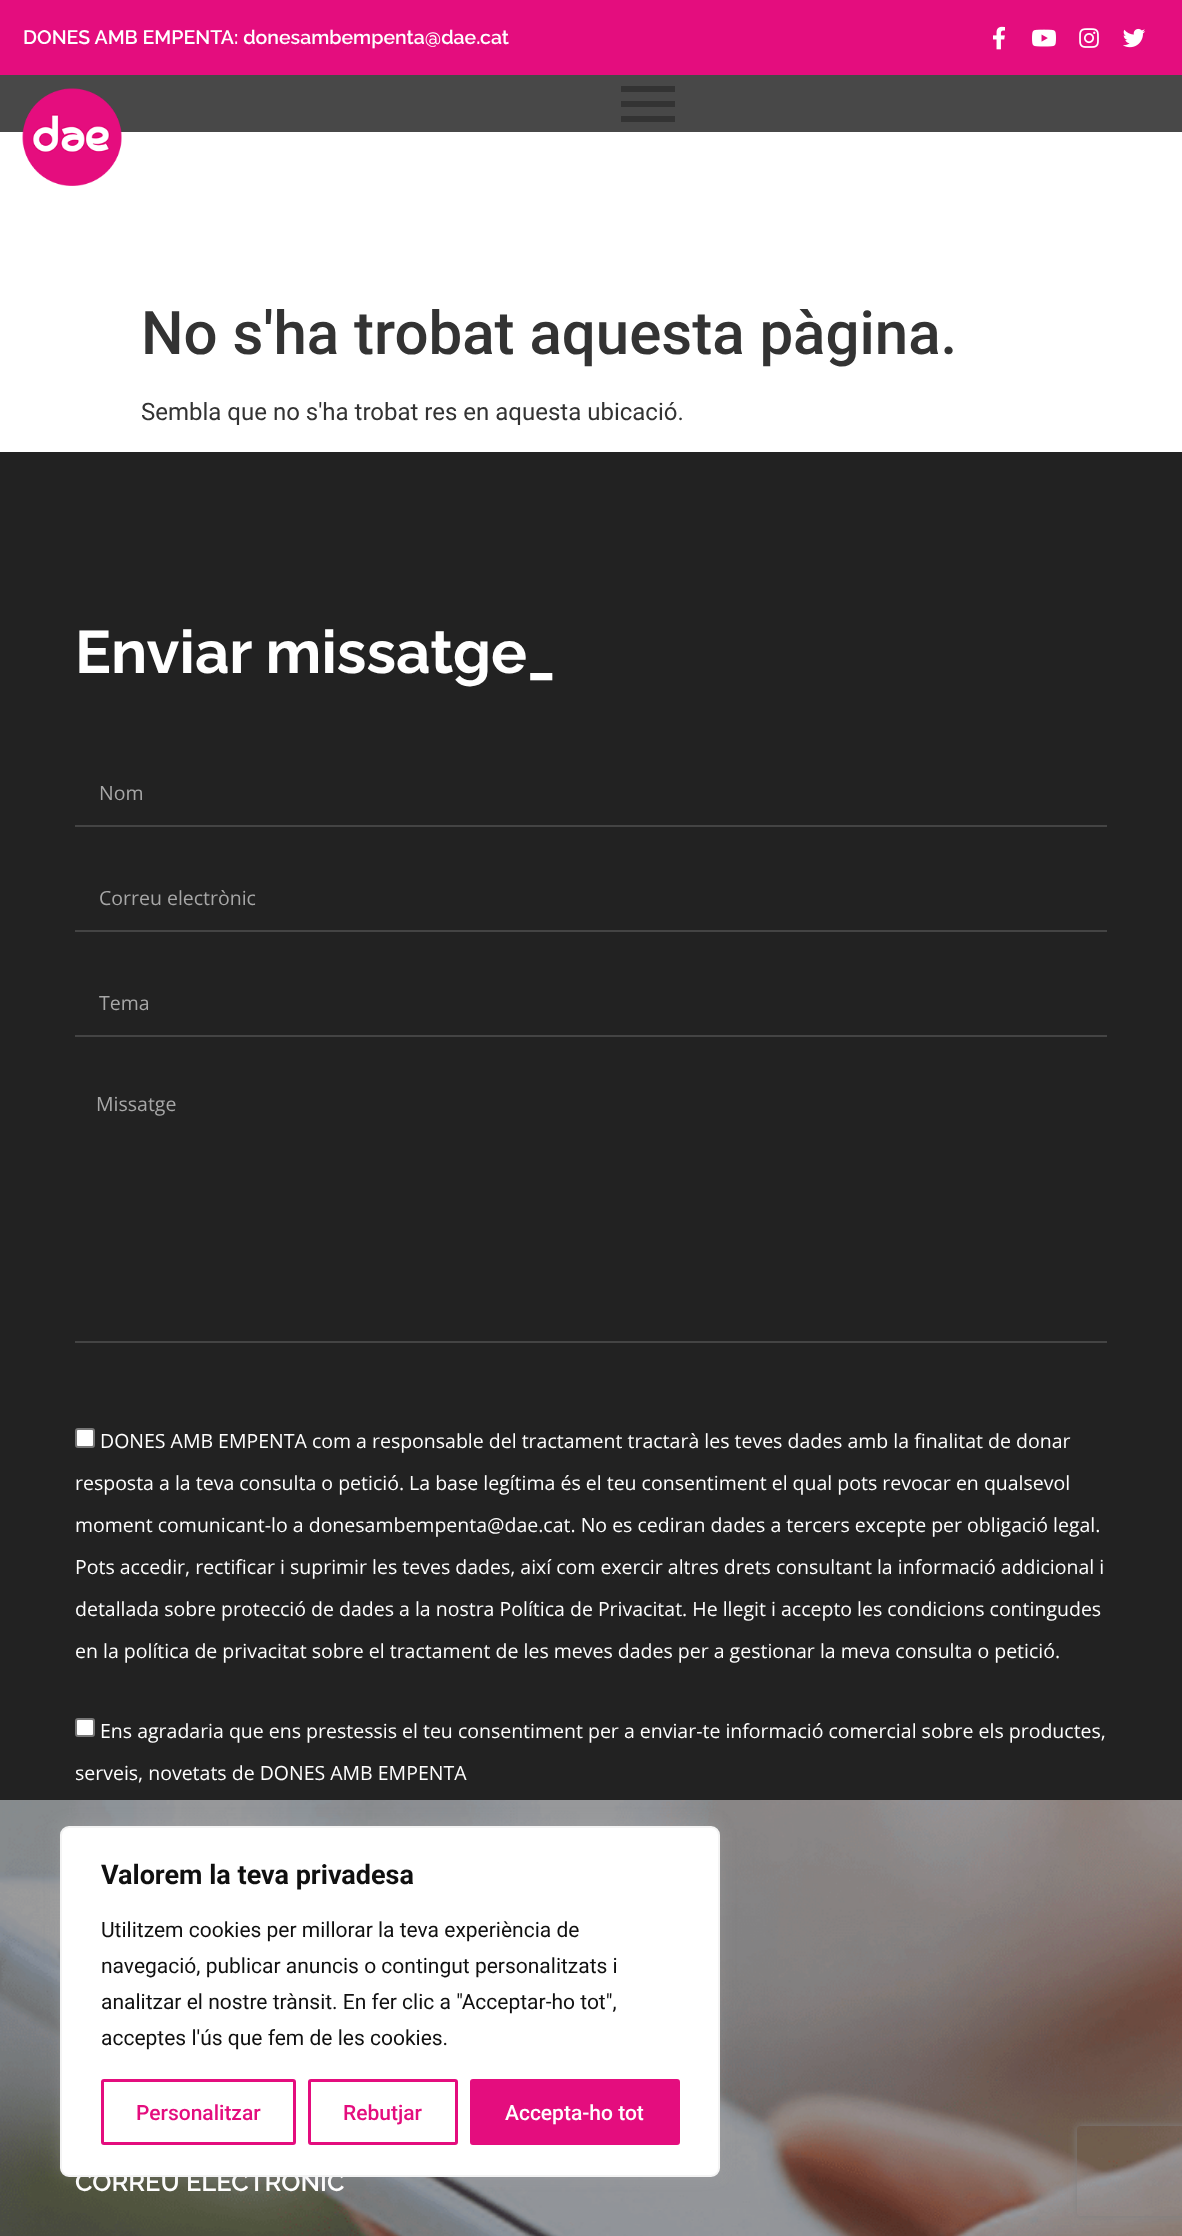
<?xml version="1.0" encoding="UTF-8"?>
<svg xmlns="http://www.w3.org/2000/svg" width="1182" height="2236">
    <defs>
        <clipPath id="clip1"><path d="M 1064 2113 H 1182 V 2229 H 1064 Z M 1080 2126 H 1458 C 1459.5 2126 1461 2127.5 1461 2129 V 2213 C 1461 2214.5 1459.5 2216 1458 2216 H 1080 C 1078.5 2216 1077 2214.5 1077 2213 V 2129 C 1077 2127.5 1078.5 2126 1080 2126 Z" clip-rule="evenodd"/></clipPath>
        <filter id="blur1" x="-50%" y="-200%" width="200%" height="500%"><feGaussianBlur stdDeviation="4"/></filter>
        <filter id="blur2" x="-50%" y="-200%" width="200%" height="500%"><feGaussianBlur stdDeviation="7.5"/></filter>
    </defs>
    <rect width="100%" height="100%" fill="#FFFFFF"/>
    <rect x="0" y="0" width="1182" height="75" fill="#E40D7E"/>
    <text x="23" y="44" font-family="Raleway" font-size="19.5" font-weight="600" fill="#FFFFFF">DONES AMB EMPENTA: donesambempenta@dae.cat</text>
    <image x="993" y="26" width="12" height="24" href="img_01.png"/>
    <image x="1032" y="29" width="24" height="18" href="img_02.png"/>
    <image x="1079" y="28" width="20" height="20" href="img_03.png"/>
    <image x="1123" y="28" width="23" height="20" href="img_04.png"/>
    <rect x="0" y="75" width="1182" height="57" fill="#484848"/>
    <image x="22" y="88" width="100" height="98" href="img_05.png"/>
    <rect x="621" y="86" width="54" height="6" fill="#333333"/>
    <rect x="621" y="101" width="54" height="6" fill="#333333"/>
    <rect x="621" y="116" width="54" height="6" fill="#333333"/>
    <text x="141" y="354" font-family="Roboto" font-size="60" font-weight="500" fill="#333333">No s'ha trobat aquesta pàgina.</text>
    <text x="141" y="420" font-family="Roboto" font-size="24" fill="#333333">Sembla que no s'ha trobat res en aquesta ubicació.</text>
    <rect x="0" y="452" width="1182" height="1784" fill="#222222"/>
    <text x="75" y="673" font-family="Raleway" font-size="60" font-weight="700" fill="#FFFFFF">Enviar missatge_</text>
    <rect x="75" y="825" width="1032" height="2" fill="#444444"/>
    <text x="99" y="800" font-family="Open Sans" font-size="19.5" fill="#A7A7A7">Nom</text>
    <rect x="75" y="930" width="1032" height="2" fill="#444444"/>
    <text x="99" y="905" font-family="Open Sans" font-size="19.5" fill="#A7A7A7">Correu electrònic</text>
    <rect x="75" y="1035" width="1032" height="2" fill="#444444"/>
    <text x="99" y="1010" font-family="Open Sans" font-size="19.5" fill="#A7A7A7">Tema</text>
    <rect x="75" y="1341" width="1032" height="2" fill="#444444"/>
    <text x="96" y="1111" font-family="Open Sans" font-size="19.5" fill="#A7A7A7">Missatge</text>
    <rect x="76" y="1429" width="18" height="18" rx="2" fill="#FFFFFF" stroke="#767676" stroke-width="2"/>
    <text x="100" y="1448" font-family="Open Sans" font-size="19.5" fill="#FFFFFF">DONES AMB EMPENTA com a responsable del tractament tractarà les teves dades amb la finalitat de donar</text>
    <text x="75" y="1490" font-family="Open Sans" font-size="19.5" fill="#FFFFFF">resposta a la teva consulta o petició. La base legítima és el teu consentiment el qual pots revocar en qualsevol</text>
    <text x="75" y="1532" font-family="Open Sans" font-size="19.5" fill="#FFFFFF">moment comunicant-lo a donesambempenta@dae.cat. No es cediran dades a tercers excepte per obligació legal.</text>
    <text x="75" y="1574" font-family="Open Sans" font-size="19.5" fill="#FFFFFF">Pots accedir, rectificar i suprimir les teves dades, així com exercir altres drets consultant la informació addicional i</text>
    <text x="75" y="1616" font-family="Open Sans" font-size="19.5" fill="#FFFFFF">detallada sobre protecció de dades a la nostra Política de Privacitat. He llegit i accepto les condicions contingudes</text>
    <text x="75" y="1658" font-family="Open Sans" font-size="19.5" fill="#FFFFFF">en la política de privacitat sobre el tractament de les meves dades per a gestionar la meva consulta o petició.</text>
    <rect x="76" y="1719" width="18" height="17" rx="2" fill="#FFFFFF" stroke="#767676" stroke-width="2"/>
    <text x="100" y="1738" font-family="Open Sans" font-size="19.5" fill="#FFFFFF">Ens agradaria que ens prestessis el teu consentiment per a enviar-te informació comercial sobre els productes,</text>
    <text x="75" y="1780" font-family="Open Sans" font-size="19.5" fill="#FFFFFF">serveis, novetats de DONES AMB EMPENTA</text>
    <image x="0" y="1800" width="1182" height="436" href="img_06.png"/>
    <g clip-path="url(#clip1)">
        <rect x="1077" y="2126" width="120" height="90" rx="3" fill="#808080" filter="url(#blur1)"/>
    </g>
    <text x="75" y="2191" font-family="Raleway" font-size="25.5" font-weight="600" fill="#FFFFFF">CORREU ELECTRÒNIC</text>
    <rect x="60" y="1824" width="660" height="351" rx="9" fill="#ACABAB" fill-opacity="0.3" filter="url(#blur2)"/>
    <rect x="61" y="1827" width="658" height="349" rx="8" fill="#FFFFFF" stroke="#F4F4F4" stroke-width="2"/>
    <text x="101" y="1884" font-family="Roboto" font-size="27" font-weight="700" fill="#101010">Valorem la teva privadesa</text>
    <text font-family="Roboto" font-size="21" fill="#101010">
        <tspan x="101" y="1937">Utilitzem cookies per millorar la teva experiència de</tspan>
        <tspan x="101" y="1973">navegació, publicar anuncis o contingut personalitzats i</tspan>
        <tspan x="101" y="2009">analitzar el nostre trànsit. En fer clic a "Acceptar-ho tot",</tspan>
        <tspan x="101" y="2045">acceptes l'ús que fem de les cookies.</tspan>
    </text>
    <rect x="102.5" y="2080.5" width="192" height="63" rx="1.5" fill="none" stroke="#E40D7E" stroke-width="3"/>
    <text x="136" y="2120" font-family="Roboto" font-size="21" font-weight="500" fill="#E40D7E">Personalitzar</text>
    <rect x="309.5" y="2080.5" width="147" height="63" rx="1.5" fill="none" stroke="#E40D7E" stroke-width="3"/>
    <text x="343" y="2120" font-family="Roboto" font-size="21" font-weight="500" fill="#E40D7E">Rebutjar</text>
    <rect x="471.5" y="2080.5" width="207" height="63" rx="1.5" fill="#E40D7E" stroke="#E40D7E" stroke-width="3"/>
    <text x="505" y="2120" font-family="Roboto" font-size="21" font-weight="500" fill="#FFFFFF">Accepta-ho tot</text>
</svg>
